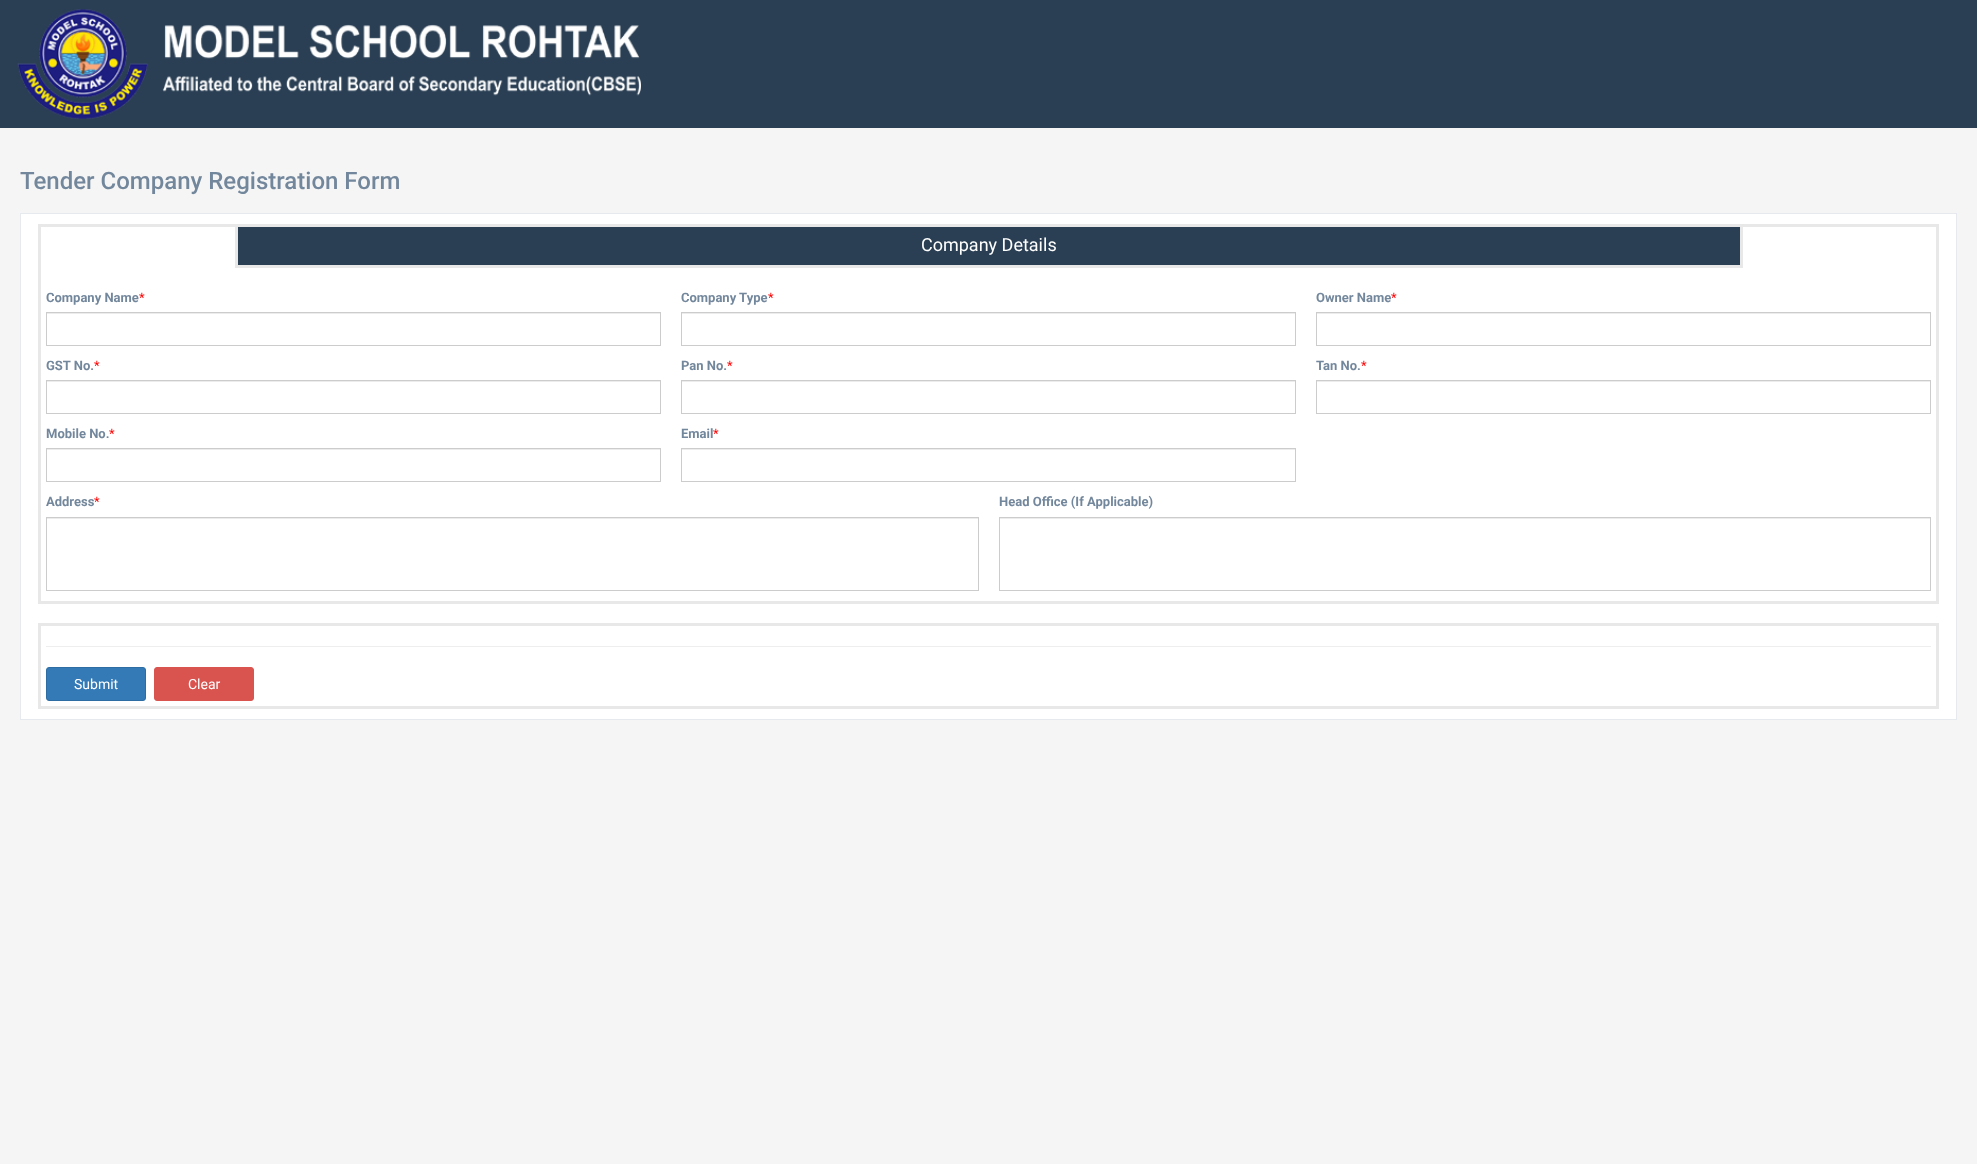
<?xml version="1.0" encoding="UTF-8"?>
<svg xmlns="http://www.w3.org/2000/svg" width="1977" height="1164">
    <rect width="100%" height="100%" fill="#F5F5F5"/>
    <rect x="0" y="0" width="1977" height="128" fill="#2A3F54"/>
    <image x="17" y="9" width="624" height="110" href="img_01.png"/>
    <text x="20" y="189" font-family="Roboto" font-size="24" font-weight="500" fill="#73879C">Tender Company Registration Form</text>
    <rect x="20.5" y="213.5" width="1936" height="506" fill="#FFFFFF" stroke="#E6E9ED"/>
    <rect x="39.5" y="225.5" width="1898" height="377" fill="none" stroke="#E8E8E8" stroke-width="3"/>
    <rect x="236.5" y="225.5" width="1505" height="41" fill="#2A3F54" stroke="#E8E8E8" stroke-width="3"/>
    <text x="921" y="251" font-family="Roboto" font-size="18" fill="#FFFFFF">Company Details</text>
    <text x="46" y="302" font-family="Roboto" font-size="13" font-weight="700" fill="#73879C">Company Name</text>
    <text x="139" y="302" font-family="Roboto" font-size="13" fill="#FF0000">*</text>
    <rect x="47" y="313" width="613" height="1" fill="#ECECEC"/>
    <rect x="46.5" y="312.5" width="614" height="33" fill="none" stroke="#CCCCCC"/>
    <text x="681" y="302" font-family="Roboto" font-size="13" font-weight="700" fill="#73879C">Company Type</text>
    <text x="768" y="302" font-family="Roboto" font-size="13" fill="#FF0000">*</text>
    <rect x="682" y="313" width="613" height="1" fill="#ECECEC"/>
    <rect x="681.5" y="312.5" width="614" height="33" fill="none" stroke="#CCCCCC"/>
    <text x="1316" y="302" font-family="Roboto" font-size="13" font-weight="700" fill="#73879C">Owner Name</text>
    <text x="1391" y="302" font-family="Roboto" font-size="13" fill="#FF0000">*</text>
    <rect x="1317" y="313" width="613" height="1" fill="#ECECEC"/>
    <rect x="1316.5" y="312.5" width="614" height="33" fill="none" stroke="#CCCCCC"/>
    <text x="46" y="370" font-family="Roboto" font-size="13" font-weight="700" fill="#73879C">GST No.</text>
    <text x="94" y="370" font-family="Roboto" font-size="13" fill="#FF0000">*</text>
    <rect x="47" y="381" width="613" height="1" fill="#ECECEC"/>
    <rect x="46.5" y="380.5" width="614" height="33" fill="none" stroke="#CCCCCC"/>
    <text x="681" y="370" font-family="Roboto" font-size="13" font-weight="700" fill="#73879C">Pan No.</text>
    <text x="727" y="370" font-family="Roboto" font-size="13" fill="#FF0000">*</text>
    <rect x="682" y="381" width="613" height="1" fill="#ECECEC"/>
    <rect x="681.5" y="380.5" width="614" height="33" fill="none" stroke="#CCCCCC"/>
    <text x="1316" y="370" font-family="Roboto" font-size="13" font-weight="700" fill="#73879C">Tan No.</text>
    <text x="1361" y="370" font-family="Roboto" font-size="13" fill="#FF0000">*</text>
    <rect x="1317" y="381" width="613" height="1" fill="#ECECEC"/>
    <rect x="1316.5" y="380.5" width="614" height="33" fill="none" stroke="#CCCCCC"/>
    <text x="46" y="438" font-family="Roboto" font-size="13" font-weight="700" fill="#73879C">Mobile No.</text>
    <text x="109" y="438" font-family="Roboto" font-size="13" fill="#FF0000">*</text>
    <rect x="47" y="449" width="613" height="1" fill="#ECECEC"/>
    <rect x="46.5" y="448.5" width="614" height="33" fill="none" stroke="#CCCCCC"/>
    <text x="681" y="438" font-family="Roboto" font-size="13" font-weight="700" fill="#73879C">Email</text>
    <text x="713" y="438" font-family="Roboto" font-size="13" fill="#FF0000">*</text>
    <rect x="682" y="449" width="613" height="1" fill="#ECECEC"/>
    <rect x="681.5" y="448.5" width="614" height="33" fill="none" stroke="#CCCCCC"/>
    <text x="46" y="506" font-family="Roboto" font-size="13" font-weight="700" fill="#73879C">Address</text>
    <text x="94" y="506" font-family="Roboto" font-size="13" fill="#FF0000">*</text>
    <rect x="47" y="518" width="931" height="1" fill="#ECECEC"/>
    <rect x="46.5" y="517.5" width="932" height="73" fill="none" stroke="#CCCCCC"/>
    <text x="999" y="506" font-family="Roboto" font-size="13" font-weight="700" fill="#73879C">Head Office (If Applicable)</text>
    <rect x="1000" y="518" width="930" height="1" fill="#ECECEC"/>
    <rect x="999.5" y="517.5" width="931" height="73" fill="none" stroke="#CCCCCC"/>
    <rect x="39.5" y="624.5" width="1898" height="83" fill="none" stroke="#E8E8E8" stroke-width="3"/>
    <rect x="46" y="646" width="1885" height="1" fill="#EEEEEE"/>
    <rect x="46.5" y="667.5" width="99" height="33" rx="2.5" fill="#337AB7" stroke="#2E6DA4"/>
    <text x="74" y="689" font-family="Roboto" font-size="14" fill="#FFFFFF">Submit</text>
    <rect x="154.5" y="667.5" width="99" height="33" rx="2.5" fill="#D9534F" stroke="#D9534F"/>
    <text x="188" y="689" font-family="Roboto" font-size="14" fill="#FFFFFF">Clear</text>
</svg>
